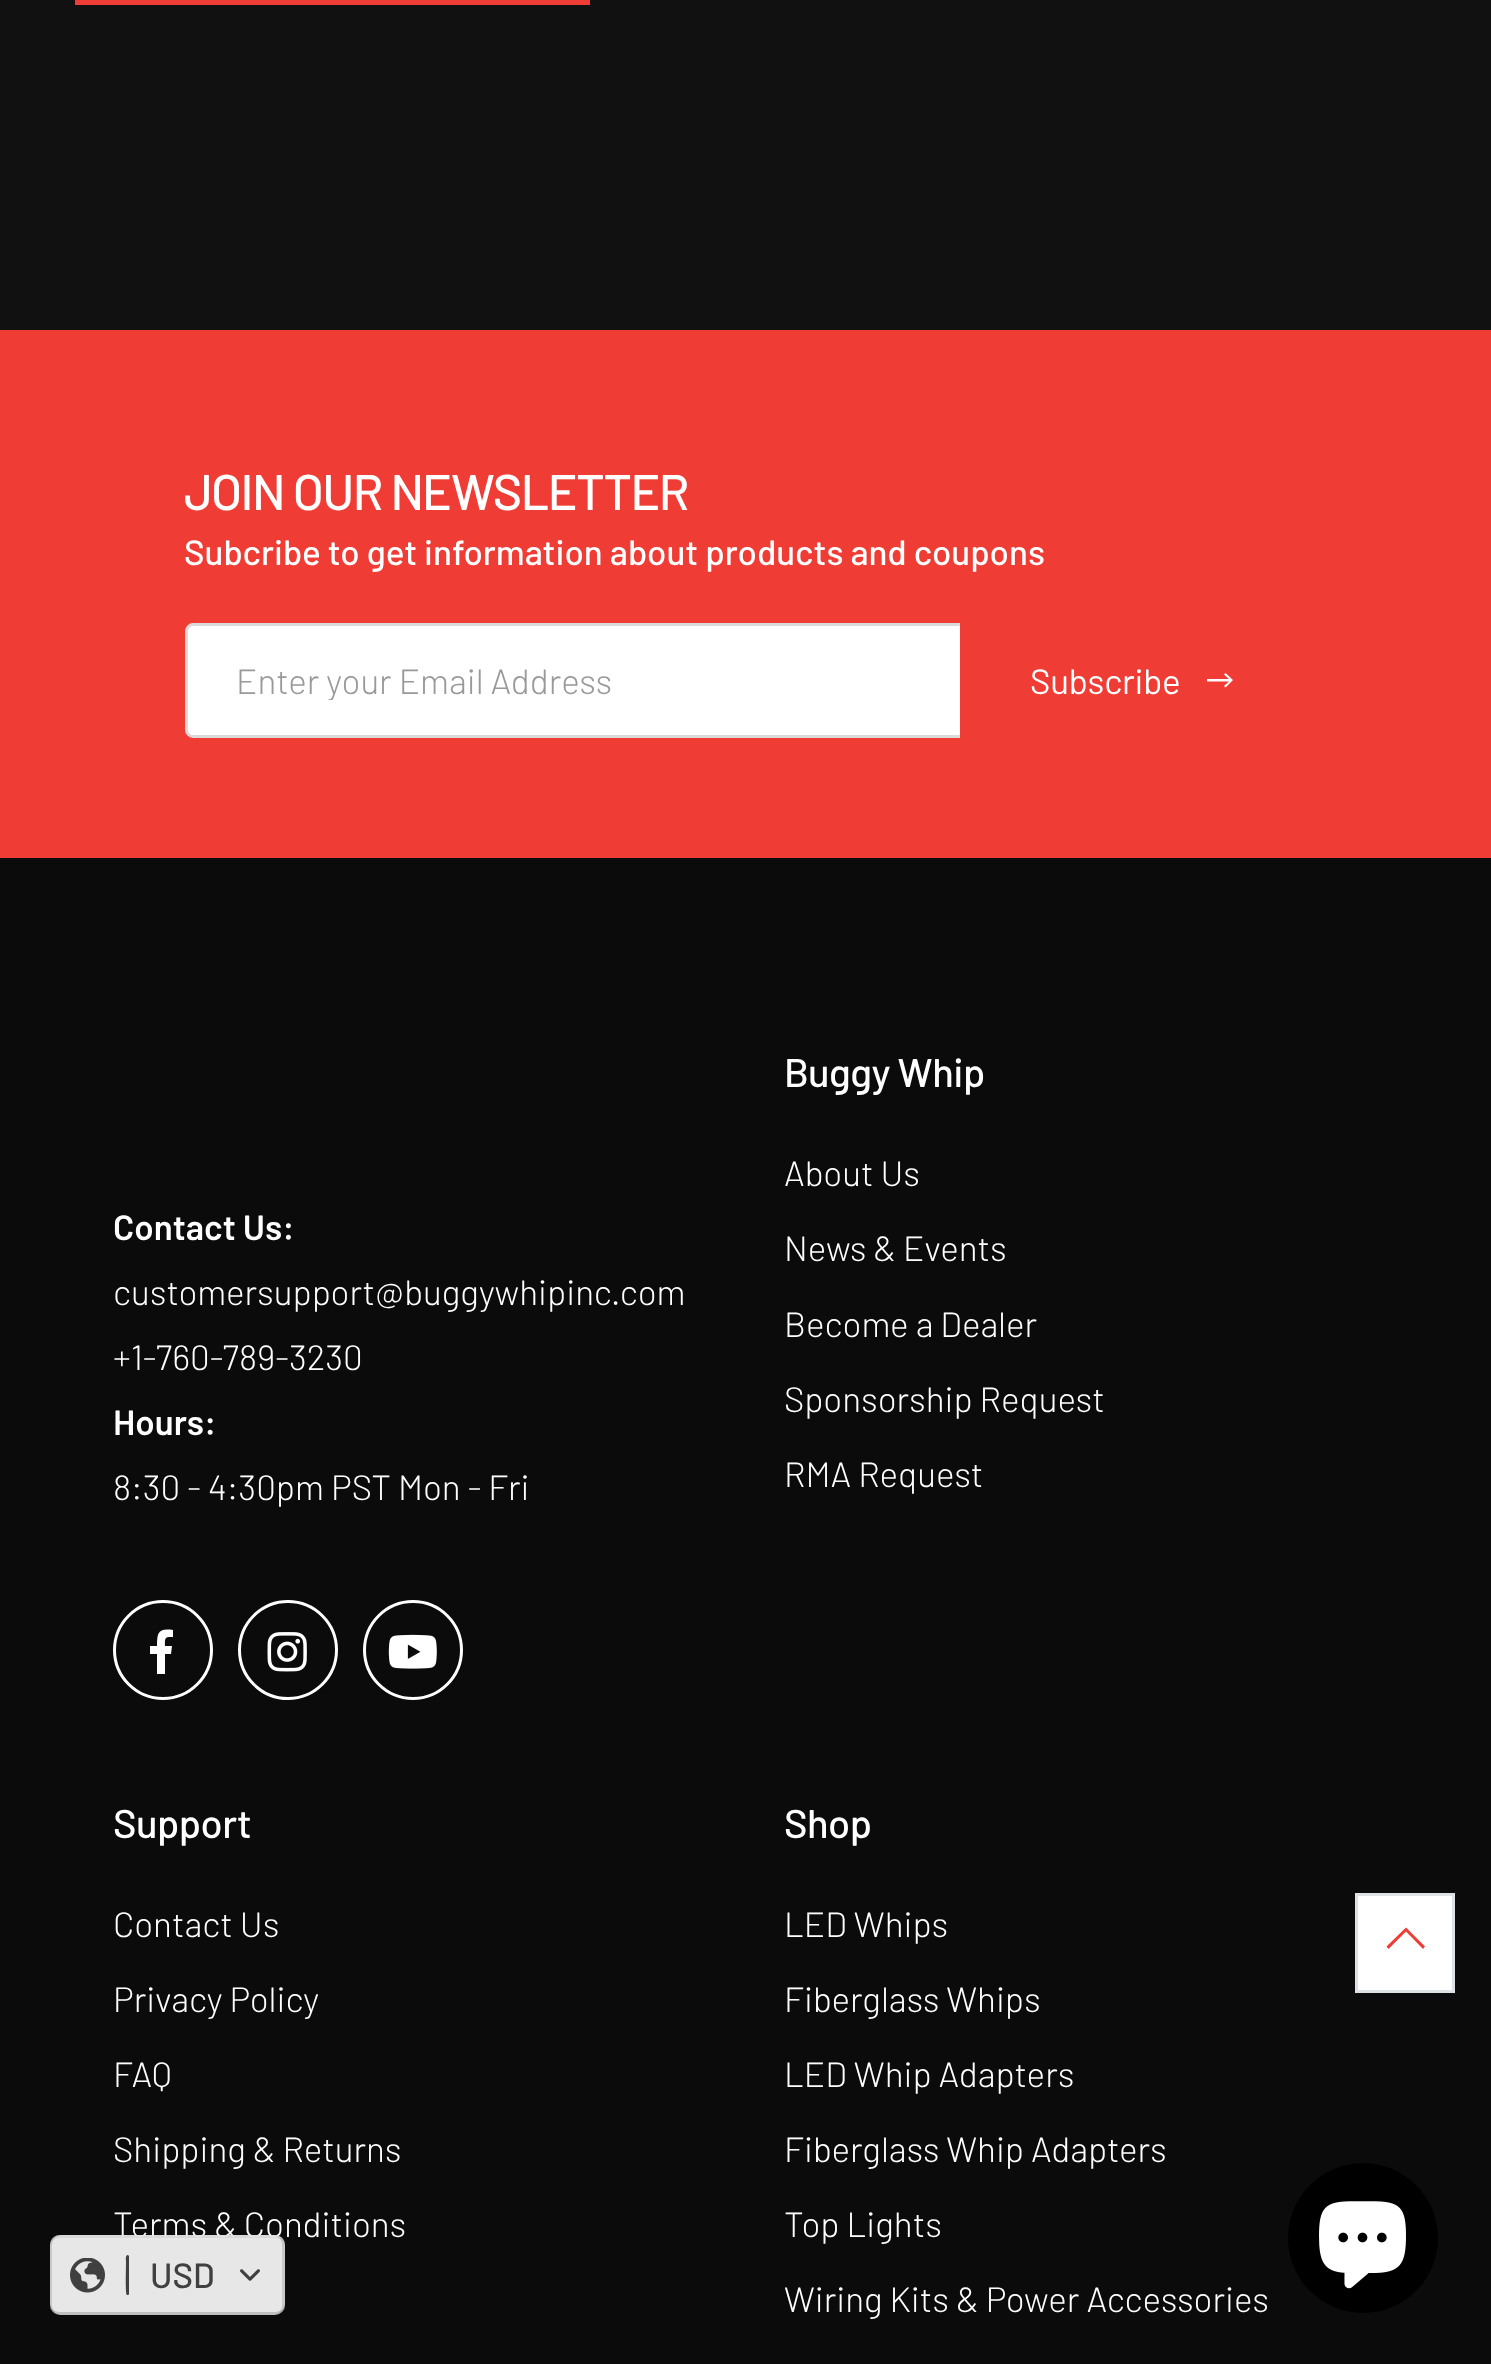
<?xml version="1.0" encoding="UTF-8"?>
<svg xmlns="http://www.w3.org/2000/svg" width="1491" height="2364">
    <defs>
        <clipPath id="clip1"><rect x="238" y="658" width="672" height="42"/></clipPath>
    </defs>
    <rect width="100%" height="100%" fill="#111111"/>
    <rect x="75" y="0" width="515" height="5" fill="#EF3D35"/>
    <rect x="0" y="330" width="1491" height="528" fill="#EF3D35"/>
    <text x="184" y="510" font-family="Barlow" font-size="50" font-weight="500" letter-spacing="-1.5" fill="#FFFFFF">JOIN OUR NEWSLETTER</text>
    <text x="184" y="565" font-family="Barlow" font-size="35" font-weight="500" fill="#FFFFFF">Subcribe to get information about products and coupons</text>
    <path d="M 193 624.5 H 961.5 V 736.5 H 193 C 189.5 736.5 186.5 733.5 186.5 730 V 631 C 186.5 627.5 189.5 624.5 193 624.5 Z" fill="#FFFFFF" stroke="#DADADA" stroke-width="3"/>
    <g clip-path="url(#clip1)">
        <text x="236" y="694" font-family="Barlow" font-size="35" font-weight="300" fill="#999999">Enter your Email Address</text>
    </g>
    <path d="M 960 623 H 1297 C 1304 623 1310 629 1310 636 V 725 C 1310 732 1304 738 1297 738 H 960 Z" fill="#EF3D35"/>
    <text x="1030" y="694" font-family="Barlow" font-size="35" letter-spacing="-0.25" fill="#FFFFFF">Subscribe</text>
    <path d="M 1225.5 673 L 1233 680 L 1225.5 687.5 L 1224 686 L 1229 681.5 H 1207 V 679 H 1229 L 1224 674.5 Z" fill="#FFFFFF"/>
    <rect x="0" y="858" width="1491" height="1506" fill="#0B0B0B"/>
    <text x="113" y="1240" font-family="Barlow" font-size="35" font-weight="600" fill="#FFFFFF">Contact Us:</text>
    <text font-family="Barlow" font-size="35" font-weight="300" fill="#FFFFFF">
        <tspan x="113" y="1305">customersupport@buggywhipinc.com</tspan>
        <tspan x="113" y="1370">+1-760-789-3230</tspan>
    </text>
    <text x="113" y="1435" font-family="Barlow" font-size="35" font-weight="600" fill="#FFFFFF">Hours:</text>
    <text x="113" y="1500" font-family="Barlow" font-size="35" font-weight="300" fill="#FFFFFF">8:30 - 4:30pm PST Mon - Fri</text>
    <circle cx="163" cy="1650" r="48.5" fill="none" stroke="#FFFFFF" stroke-width="3"/>
    <path d="M 169 1637 C 164 1637 165 1642 165 1646 H 172 L 171 1654 H 165 V 1674 H 157 V 1654 H 150 V 1646 H 157 C 157 1633 158 1628 173 1630 V 1637 Z" fill="#FFFFFF"/>
    <circle cx="288" cy="1650" r="48.5" fill="none" stroke="#FFFFFF" stroke-width="3"/>
    <image x="267" y="1632" width="40" height="40" href="img_01.png"/>
    <circle cx="413" cy="1650" r="48.5" fill="none" stroke="#FFFFFF" stroke-width="3"/>
    <image x="388" y="1634" width="49" height="35" href="img_02.png"/>
    <text x="784" y="1087" font-family="Barlow" font-size="40" font-weight="500" letter-spacing="-0.5" fill="#FFFFFF">Buggy Whip</text>
    <text x="784" y="1186" font-family="Barlow" font-size="35" font-weight="300" fill="#FFFFFF">About Us</text>
    <text x="784" y="1261" font-family="Barlow" font-size="35" font-weight="300" fill="#FFFFFF">News &amp; Events</text>
    <text x="784" y="1337" font-family="Barlow" font-size="35" font-weight="300" fill="#FFFFFF">Become a Dealer</text>
    <text x="784" y="1412" font-family="Barlow" font-size="35" font-weight="300" fill="#FFFFFF">Sponsorship Request</text>
    <text x="784" y="1487" font-family="Barlow" font-size="35" font-weight="300" fill="#FFFFFF">RMA Request</text>
    <text x="113" y="1838" font-family="Barlow" font-size="40" font-weight="500" letter-spacing="-0.5" fill="#FFFFFF">Support</text>
    <text x="113" y="1937" font-family="Barlow" font-size="35" font-weight="300" fill="#FFFFFF">Contact Us</text>
    <text x="113" y="2012" font-family="Barlow" font-size="35" font-weight="300" fill="#FFFFFF">Privacy Policy</text>
    <text x="113" y="2087" font-family="Barlow" font-size="35" font-weight="300" fill="#FFFFFF">FAQ</text>
    <text x="113" y="2162" font-family="Barlow" font-size="35" font-weight="300" fill="#FFFFFF">Shipping &amp; Returns</text>
    <text x="113" y="2237" font-family="Barlow" font-size="35" font-weight="300" fill="#FFFFFF">Terms &amp; Conditions</text>
    <text x="784" y="1838" font-family="Barlow" font-size="40" font-weight="500" letter-spacing="-0.5" fill="#FFFFFF">Shop</text>
    <text x="784" y="1937" font-family="Barlow" font-size="35" font-weight="300" fill="#FFFFFF">LED Whips</text>
    <text x="784" y="2012" font-family="Barlow" font-size="35" font-weight="300" fill="#FFFFFF">Fiberglass Whips</text>
    <text x="784" y="2087" font-family="Barlow" font-size="35" font-weight="300" fill="#FFFFFF">LED Whip Adapters</text>
    <text x="784" y="2162" font-family="Barlow" font-size="35" font-weight="300" fill="#FFFFFF">Fiberglass Whip Adapters</text>
    <text x="784" y="2237" font-family="Barlow" font-size="35" font-weight="300" fill="#FFFFFF">Top Lights</text>
    <text x="784" y="2312" font-family="Barlow" font-size="35" font-weight="300" fill="#FFFFFF">Wiring Kits &amp; Power Accessories</text>
    <rect x="1356.5" y="1894.5" width="97" height="97" fill="#FFFFFF" stroke="#DEE2E6" stroke-width="3"/>
    <path d="M 1406 1927.5 L 1425 1946.5 L 1423 1949 L 1406 1931.5 L 1388.5 1949 L 1386.5 1946.5 Z" fill="#EF3D35"/>
    <rect x="50" y="2235" width="235" height="80" rx="10" fill="#FFFFFF" fill-opacity="0.9"/>
    <path d="M 60 2238 H 275 C 281 2238 285 2242 285 2248 V 2245 C 285 2239 281 2235 275 2235 H 60 C 54 2235 50 2239 50 2245 V 2248 C 50 2242 54 2238 60 2238 Z" fill="#CCCCCC" fill-opacity="0.5"/>
    <path d="M 50 2302 V 2305 C 50 2311 54 2315 60 2315 H 275 C 281 2315 285 2311 285 2305 V 2302 C 285 2308 281 2312 275 2312 H 60 C 54 2312 50 2308 50 2302 Z" fill="#000000" fill-opacity="0.17"/>
    <path d="M 272 2315 C 286 2315 285 2307 285 2295 V 2255 C 285 2243 286 2235 272 2235 C 278 2235 282 2239 282 2245 V 2305 C 282 2311 278 2315 272 2315 Z" fill="#000000" fill-opacity="0.13"/>
    <path d="M 60 2235 C 54 2235 50 2239 50 2245 V 2305 C 50 2311 54 2315 60 2315 H 62 C 57 2315 52 2311 52 2305 V 2245 C 52 2239 57 2235 62 2235 Z" fill="#000000" fill-opacity="0.13"/>
    <image x="70" y="2258" width="35" height="35" href="img_03.png"/>
    <path d="M 129 2294 C 129 2295 128 2295 127 2295 C 125 2295 126 2270 126 2262 C 126 2260 125 2255 128 2255 L 129 2256 Z" fill="#404040"/>
    <text x="150" y="2288" font-family="Barlow" font-size="35" font-weight="500" fill="#404040">USD</text>
    <image x="240" y="2269" width="20" height="12" href="img_04.png"/>
    <circle cx="1363" cy="2238" r="75" fill="#000000"/>
    <image x="1319" y="2201" width="87" height="88" href="img_05.png"/>
</svg>
